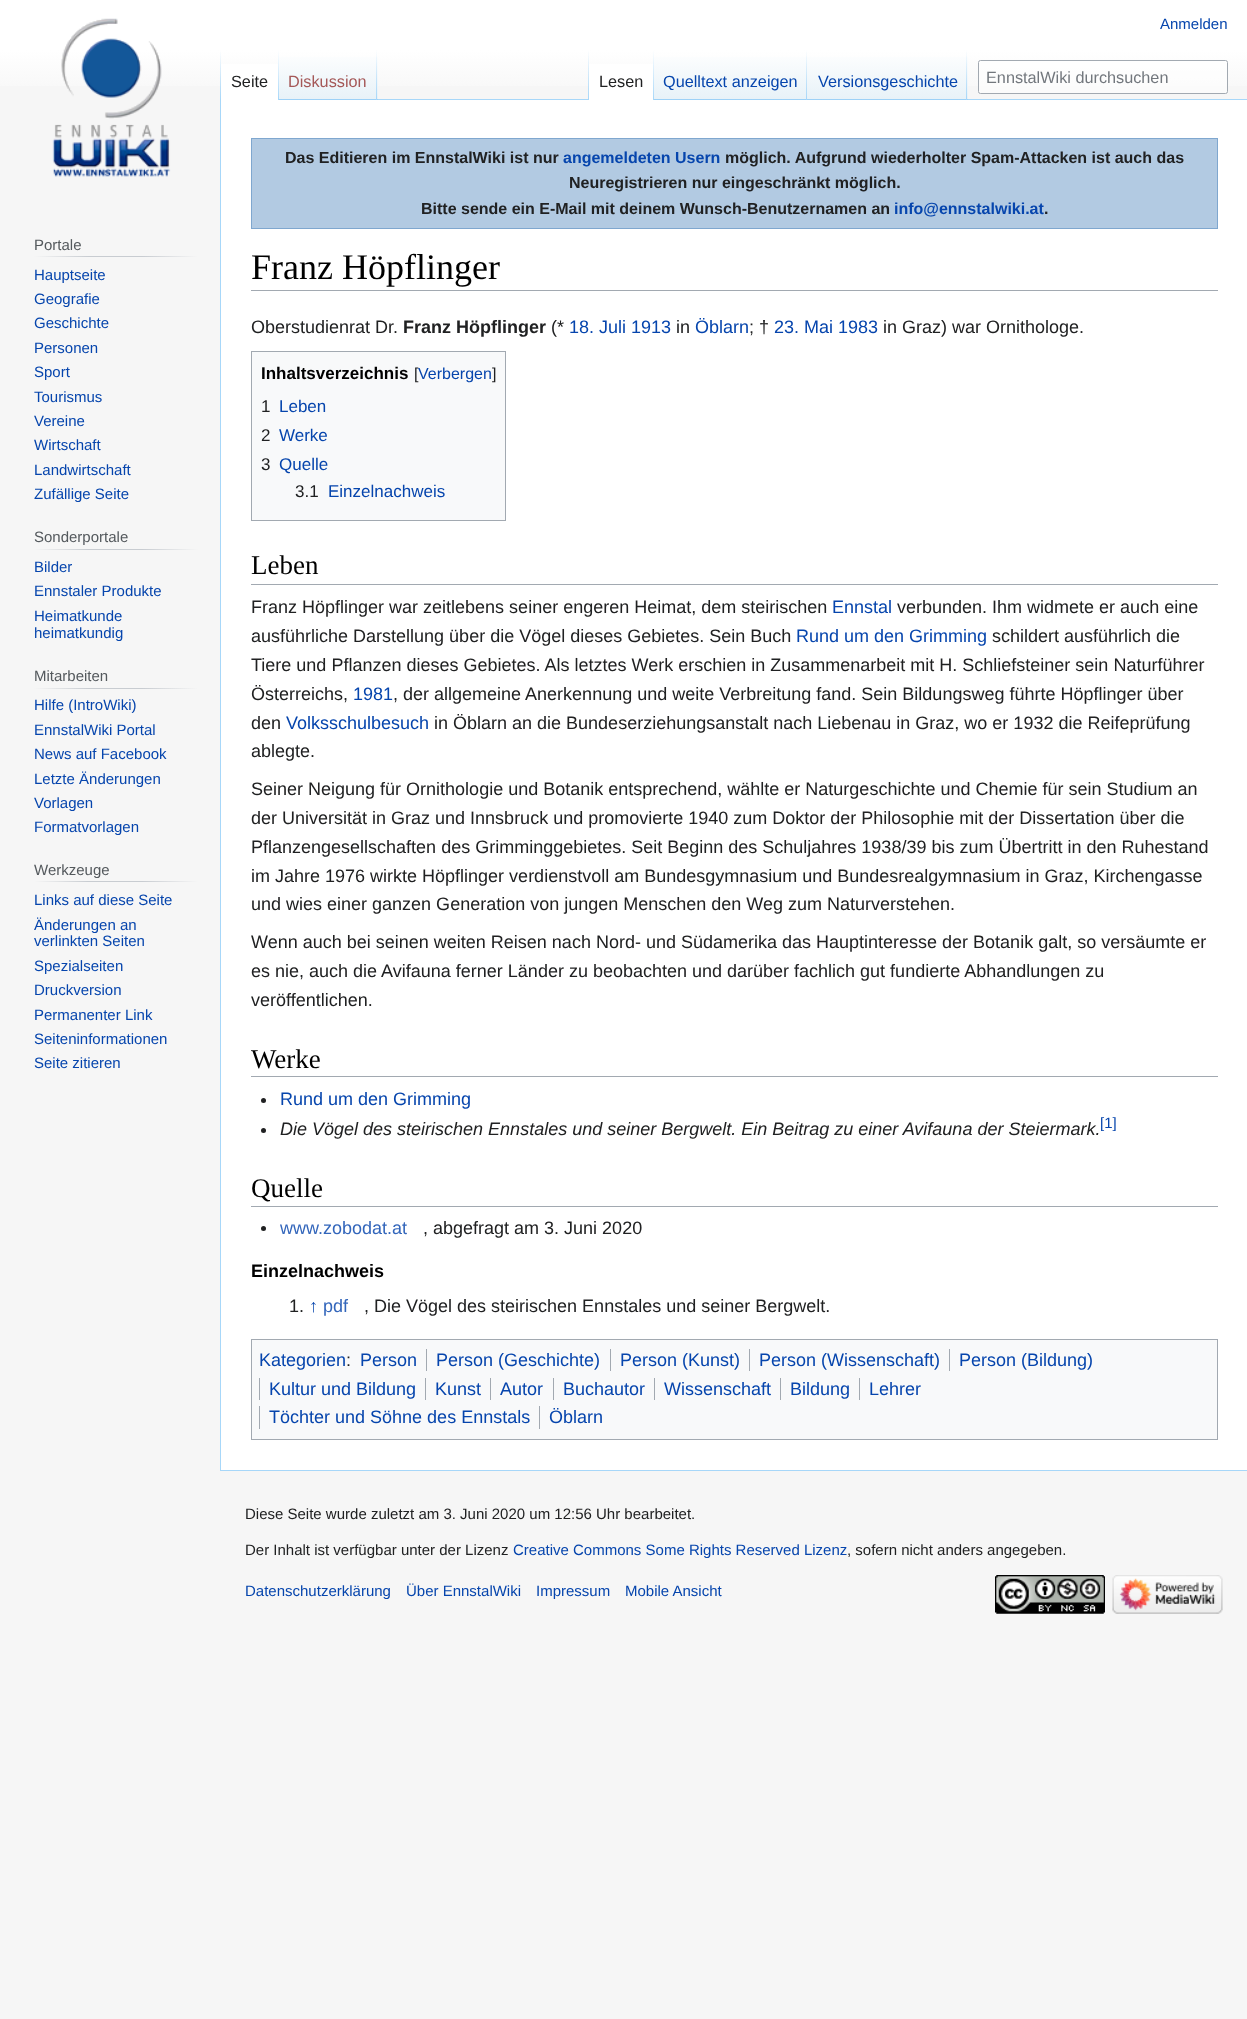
<?xml version="1.0" encoding="UTF-8"?>
<svg xmlns="http://www.w3.org/2000/svg" width="1247" height="2019">
    <defs>
        <linearGradient id="g1" gradientUnits="userSpaceOnUse" x1="624" y1="0" x2="624" y2="100"><stop offset="0.5" stop-color="#FFFFFF"/><stop offset="1" stop-color="#F6F6F6"/></linearGradient>
        <linearGradient id="g2" gradientUnits="userSpaceOnUse" x1="221" y1="50" x2="221" y2="100"><stop offset="0" stop-color="#A7D7F9" stop-opacity="0"/><stop offset="1" stop-color="#A7D7F9"/></linearGradient>
        <linearGradient id="g3" gradientUnits="userSpaceOnUse" x1="278" y1="50" x2="278" y2="100"><stop offset="0" stop-color="#FFFFFF"/><stop offset="1" stop-color="#A7D7F9"/></linearGradient>
        <linearGradient id="g4" gradientUnits="userSpaceOnUse" x1="328" y1="100" x2="328" y2="50"><stop offset="0" stop-color="#77C1F6"/><stop offset="0.03" stop-color="#E8F2F8"/><stop offset="1" stop-color="#FFFFFF"/></linearGradient>
        <linearGradient id="g5" gradientUnits="userSpaceOnUse" x1="377" y1="50" x2="377" y2="100"><stop offset="0" stop-color="#A7D7F9" stop-opacity="0"/><stop offset="1" stop-color="#A7D7F9"/></linearGradient>
        <linearGradient id="g6" gradientUnits="userSpaceOnUse" x1="588" y1="50" x2="588" y2="100"><stop offset="0" stop-color="#A7D7F9" stop-opacity="0"/><stop offset="1" stop-color="#A7D7F9"/></linearGradient>
        <linearGradient id="g7" gradientUnits="userSpaceOnUse" x1="653" y1="50" x2="653" y2="100"><stop offset="0" stop-color="#FFFFFF"/><stop offset="1" stop-color="#A7D7F9"/></linearGradient>
        <linearGradient id="g8" gradientUnits="userSpaceOnUse" x1="731" y1="100" x2="731" y2="50"><stop offset="0" stop-color="#77C1F6"/><stop offset="0.03" stop-color="#E8F2F8"/><stop offset="1" stop-color="#FFFFFF"/></linearGradient>
        <linearGradient id="g9" gradientUnits="userSpaceOnUse" x1="807" y1="50" x2="807" y2="100"><stop offset="0" stop-color="#A7D7F9" stop-opacity="0"/><stop offset="1" stop-color="#A7D7F9"/></linearGradient>
        <linearGradient id="g10" gradientUnits="userSpaceOnUse" x1="888" y1="100" x2="888" y2="50"><stop offset="0" stop-color="#77C1F6"/><stop offset="0.03" stop-color="#E8F2F8"/><stop offset="1" stop-color="#FFFFFF"/></linearGradient>
        <linearGradient id="g11" gradientUnits="userSpaceOnUse" x1="967" y1="50" x2="967" y2="100"><stop offset="0" stop-color="#A7D7F9" stop-opacity="0"/><stop offset="1" stop-color="#A7D7F9"/></linearGradient>
        <linearGradient id="g12" gradientUnits="userSpaceOnUse" x1="34" y1="257" x2="198" y2="257"><stop offset="0" stop-color="#F6F6F6"/><stop offset="0.33" stop-color="#C8CCD1"/><stop offset="0.66" stop-color="#C8CCD1"/><stop offset="1" stop-color="#F6F6F6"/></linearGradient>
        <linearGradient id="g13" gradientUnits="userSpaceOnUse" x1="34" y1="549" x2="198" y2="549"><stop offset="0" stop-color="#F6F6F6"/><stop offset="0.33" stop-color="#C8CCD1"/><stop offset="0.66" stop-color="#C8CCD1"/><stop offset="1" stop-color="#F6F6F6"/></linearGradient>
        <linearGradient id="g14" gradientUnits="userSpaceOnUse" x1="34" y1="688" x2="198" y2="688"><stop offset="0" stop-color="#F6F6F6"/><stop offset="0.33" stop-color="#C8CCD1"/><stop offset="0.66" stop-color="#C8CCD1"/><stop offset="1" stop-color="#F6F6F6"/></linearGradient>
        <linearGradient id="g15" gradientUnits="userSpaceOnUse" x1="34" y1="882" x2="198" y2="882"><stop offset="0" stop-color="#F6F6F6"/><stop offset="0.33" stop-color="#C8CCD1"/><stop offset="0.66" stop-color="#C8CCD1"/><stop offset="1" stop-color="#F6F6F6"/></linearGradient>
    </defs>
    <rect width="100%" height="100%" fill="#F6F6F6"/>
    <rect x="0" y="0" width="1247" height="86" fill="url(#g1)"/>
    <text x="1160" y="29" font-family="Liberation Sans" font-size="15" fill="#0645AD">Anmelden</text>
    <rect x="220" y="1470" width="1027" height="1" fill="#A7D7F9"/>
    <rect x="220" y="99" width="1" height="1372" fill="#A7D7F9"/>
    <rect x="220" y="50" width="1" height="50" fill="url(#g2)"/>
    <rect x="221" y="64" width="57" height="36" fill="#FFFFFF"/>
    <rect x="278" y="50" width="1" height="50" fill="url(#g3)"/>
    <text x="231" y="87" font-family="Liberation Sans" font-size="16.25" fill="#202122">Seite</text>
    <rect x="279" y="57" width="99" height="43" fill="url(#g4)"/>
    <rect x="376" y="50" width="1" height="50" fill="url(#g5)"/>
    <text x="288" y="87" font-family="Liberation Sans" font-size="16.25" fill="#A55858">Diskussion</text>
    <rect x="378" y="99" width="869" height="1" fill="#A7D7F9"/>
    <rect x="588" y="50" width="1" height="50" fill="url(#g6)"/>
    <rect x="589" y="64" width="64" height="36" fill="#FFFFFF"/>
    <rect x="653" y="50" width="1" height="50" fill="url(#g7)"/>
    <text x="599" y="87" font-family="Liberation Sans" font-size="16.25" fill="#202122">Lesen</text>
    <rect x="654" y="57" width="154" height="43" fill="url(#g8)"/>
    <rect x="806" y="50" width="1" height="50" fill="url(#g9)"/>
    <text x="663" y="87" font-family="Liberation Sans" font-size="16.25" fill="#0645AD">Quelltext anzeigen</text>
    <rect x="808" y="57" width="160" height="43" fill="url(#g10)"/>
    <rect x="966" y="50" width="1" height="50" fill="url(#g11)"/>
    <text x="818" y="87" font-family="Liberation Sans" font-size="16.25" fill="#0645AD">Versionsgeschichte</text>
    <rect x="978.5" y="60.5" width="249" height="33" rx="2" fill="#FFFFFF" fill-opacity="0.5" stroke="#A2A9B1"/>
    <text x="986" y="83" font-family="Liberation Sans" font-size="16.25" fill="#72777D">EnnstalWiki durchsuchen</text>
    <image x="52" y="18" width="119" height="159" href="img_01.png"/>
    <rect x="34" y="256" width="164" height="1" fill="url(#g12)"/>
    <text x="34" y="250" font-family="Liberation Sans" font-size="15" fill="#54595D">Portale</text>
    <text font-family="Liberation Sans" font-size="15" fill="#0645AD">
        <tspan x="34" y="280">Hauptseite</tspan>
        <tspan x="34" y="304">Geografie</tspan>
        <tspan x="34" y="328">Geschichte</tspan>
        <tspan x="34" y="353">Personen</tspan>
        <tspan x="34" y="377">Sport</tspan>
        <tspan x="34" y="402">Tourismus</tspan>
        <tspan x="34" y="426">Vereine</tspan>
        <tspan x="34" y="450">Wirtschaft</tspan>
        <tspan x="34" y="475">Landwirtschaft</tspan>
        <tspan x="34" y="499">Zufällige Seite</tspan>
    </text>
    <rect x="34" y="549" width="164" height="1" fill="url(#g13)"/>
    <text x="34" y="542" font-family="Liberation Sans" font-size="15" fill="#54595D">Sonderportale</text>
    <text font-family="Liberation Sans" font-size="15" fill="#0645AD">
        <tspan x="34" y="572">Bilder</tspan>
        <tspan x="34" y="596">Ennstaler Produkte</tspan>
        <tspan x="34" y="621">Heimatkunde</tspan>
        <tspan x="34" y="638">heimatkundig</tspan>
    </text>
    <rect x="34" y="688" width="164" height="1" fill="url(#g14)"/>
    <text x="34" y="681" font-family="Liberation Sans" font-size="15" fill="#54595D">Mitarbeiten</text>
    <text font-family="Liberation Sans" font-size="15" fill="#0645AD">
        <tspan x="34" y="710">Hilfe (IntroWiki)</tspan>
        <tspan x="34" y="735">EnnstalWiki Portal</tspan>
        <tspan x="34" y="759">News auf Facebook</tspan>
        <tspan x="34" y="784">Letzte Änderungen</tspan>
        <tspan x="34" y="808">Vorlagen</tspan>
        <tspan x="34" y="832">Formatvorlagen</tspan>
    </text>
    <rect x="34" y="881" width="164" height="1" fill="url(#g15)"/>
    <text x="34" y="875" font-family="Liberation Sans" font-size="15" fill="#54595D">Werkzeuge</text>
    <text font-family="Liberation Sans" font-size="15" fill="#0645AD">
        <tspan x="34" y="905">Links auf diese Seite</tspan>
        <tspan x="34" y="930">Änderungen an</tspan>
        <tspan x="34" y="946">verlinkten Seiten</tspan>
        <tspan x="34" y="971">Spezialseiten</tspan>
        <tspan x="34" y="995">Druckversion</tspan>
        <tspan x="34" y="1020">Permanenter Link</tspan>
        <tspan x="34" y="1044">Seiteninformationen</tspan>
        <tspan x="34" y="1068">Seite zitieren</tspan>
    </text>
    <rect x="221" y="100" width="1026" height="1370" fill="#FFFFFF"/>
    <rect x="251.5" y="138.5" width="966" height="90" fill="#B2CAE2" stroke="#7FA7CF"/>
    <text x="285" y="163" font-family="Liberation Sans" font-size="16" font-weight="700" fill="#202122">Das Editieren im EnnstalWiki ist nur</text>
    <text x="563" y="163" font-family="Liberation Sans" font-size="16" font-weight="700" fill="#0645AD">angemeldeten Usern</text>
    <text x="725" y="163" font-family="Liberation Sans" font-size="16" font-weight="700" fill="#202122">möglich. Aufgrund wiederholter Spam-Attacken ist auch das</text>
    <text x="569" y="188" font-family="Liberation Sans" font-size="16" font-weight="700" fill="#202122">Neuregistrieren nur eingeschränkt möglich.</text>
    <text x="421" y="214" font-family="Liberation Sans" font-size="16" font-weight="700" fill="#202122">Bitte sende ein E-Mail mit deinem Wunsch-Benutzernamen an</text>
    <text x="894" y="214" font-family="Liberation Sans" font-size="16" font-weight="700" fill="#0645AD">info@ennstalwiki.at</text>
    <text x="1044" y="214" font-family="Liberation Sans" font-size="16" font-weight="700" fill="#202122">.</text>
    <rect x="251" y="290" width="967" height="1" fill="#A2A9B1"/>
    <text x="251" y="279" font-family="Liberation Serif" font-size="36" fill="#000000">Franz Höpflinger</text>
    <text x="251" y="333" font-family="Liberation Sans" font-size="18" fill="#202122">Oberstudienrat Dr.</text>
    <text x="403" y="333" font-family="Liberation Sans" font-size="18" font-weight="700" fill="#202122">Franz Höpflinger</text>
    <text x="551" y="333" font-family="Liberation Sans" font-size="18" fill="#202122">(*</text>
    <text x="569" y="333" font-family="Liberation Sans" font-size="18" fill="#0645AD">18. Juli 1913</text>
    <text x="676" y="333" font-family="Liberation Sans" font-size="18" fill="#202122">in</text>
    <text x="695" y="333" font-family="Liberation Sans" font-size="18" fill="#0645AD">Öblarn</text>
    <text x="749" y="333" font-family="Liberation Sans" font-size="18" fill="#202122">; †</text>
    <text x="774" y="333" font-family="Liberation Sans" font-size="18" fill="#0645AD">23. Mai 1983</text>
    <text x="883" y="333" font-family="Liberation Sans" font-size="18" fill="#202122">in Graz) war Ornithologe.</text>
    <rect x="251.5" y="351.5" width="254" height="169" fill="#F8F9FA" stroke="#A2A9B1"/>
    <text x="261" y="379" font-family="Liberation Sans" font-size="17" font-weight="700" fill="#000000">Inhaltsverzeichnis</text>
    <text x="414" y="379" font-family="Liberation Sans" font-size="16" fill="#202122">[</text>
    <text x="418" y="379" font-family="Liberation Sans" font-size="16" fill="#0645AD">Verbergen</text>
    <text x="492" y="379" font-family="Liberation Sans" font-size="16" fill="#202122">]</text>
    <text x="261" y="412" font-family="Liberation Sans" font-size="17" fill="#202122">1</text>
    <text x="279" y="412" font-family="Liberation Sans" font-size="17" fill="#0645AD">Leben</text>
    <text x="261" y="441" font-family="Liberation Sans" font-size="17" fill="#202122">2</text>
    <text x="279" y="441" font-family="Liberation Sans" font-size="17" fill="#0645AD">Werke</text>
    <text x="261" y="470" font-family="Liberation Sans" font-size="17" fill="#202122">3</text>
    <text x="279" y="470" font-family="Liberation Sans" font-size="17" fill="#0645AD">Quelle</text>
    <text x="295" y="497" font-family="Liberation Sans" font-size="17" fill="#202122">3.1</text>
    <text x="328" y="497" font-family="Liberation Sans" font-size="17" fill="#0645AD">Einzelnachweis</text>
    <rect x="251" y="584" width="967" height="1" fill="#A2A9B1"/>
    <text x="251" y="574" font-family="Liberation Serif" font-size="27" fill="#000000">Leben</text>
    <text x="251" y="613" font-family="Liberation Sans" font-size="18" fill="#202122">Franz Höpflinger war zeitlebens seiner engeren Heimat, dem steirischen</text>
    <text x="832" y="613" font-family="Liberation Sans" font-size="18" fill="#0645AD">Ennstal</text>
    <text x="897" y="613" font-family="Liberation Sans" font-size="18" fill="#202122">verbunden. Ihm widmete er auch eine</text>
    <text x="251" y="642" font-family="Liberation Sans" font-size="18" fill="#202122">ausführliche Darstellung über die Vögel dieses Gebietes. Sein Buch</text>
    <text x="796" y="642" font-family="Liberation Sans" font-size="18" fill="#0645AD">Rund um den Grimming</text>
    <text x="992" y="642" font-family="Liberation Sans" font-size="18" fill="#202122">schildert ausführlich die</text>
    <text font-family="Liberation Sans" font-size="18" fill="#202122">
        <tspan x="251" y="671">Tiere und Pflanzen dieses Gebietes. Als letztes Werk erschien in Zusammenarbeit mit H. Schliefsteiner sein Naturführer</tspan>
        <tspan x="251" y="700">Österreichs,</tspan>
    </text>
    <text x="353" y="700" font-family="Liberation Sans" font-size="18" fill="#0645AD">1981</text>
    <text x="393" y="700" font-family="Liberation Sans" font-size="18" fill="#202122">, der allgemeine Anerkennung und weite Verbreitung fand. Sein Bildungsweg führte Höpflinger über</text>
    <text x="251" y="729" font-family="Liberation Sans" font-size="18" fill="#202122">den</text>
    <text x="286" y="729" font-family="Liberation Sans" font-size="18" fill="#0645AD">Volksschulbesuch</text>
    <text x="434" y="729" font-family="Liberation Sans" font-size="18" fill="#202122">in Öblarn an die Bundeserziehungsanstalt nach Liebenau in Graz, wo er 1932 die Reifeprüfung</text>
    <text x="251" y="757" font-family="Liberation Sans" font-size="18" fill="#202122">ablegte.</text>
    <text font-family="Liberation Sans" font-size="18" fill="#202122">
        <tspan x="251" y="795">Seiner Neigung für Ornithologie und Botanik entsprechend, wählte er Naturgeschichte und Chemie für sein Studium an</tspan>
        <tspan x="251" y="824">der Universität in Graz und Innsbruck und promovierte 1940 zum Doktor der Philosophie mit der Dissertation über die</tspan>
        <tspan x="251" y="853">Pflanzengesellschaften des Grimminggebietes. Seit Beginn des Schuljahres 1938/39 bis zum Übertritt in den Ruhestand</tspan>
        <tspan x="251" y="882">im Jahre 1976 wirkte Höpflinger verdienstvoll am Bundesgymnasium und Bundesrealgymnasium in Graz, Kirchengasse</tspan>
        <tspan x="251" y="910">und wies einer ganzen Generation von jungen Menschen den Weg zum Naturverstehen.</tspan>
    </text>
    <text font-family="Liberation Sans" font-size="18" fill="#202122">
        <tspan x="251" y="948">Wenn auch bei seinen weiten Reisen nach Nord- und Südamerika das Hauptinteresse der Botanik galt, so versäumte er</tspan>
        <tspan x="251" y="977">es nie, auch die Avifauna ferner Länder zu beobachten und darüber fachlich gut fundierte Abhandlungen zu</tspan>
        <tspan x="251" y="1006">veröffentlichen.</tspan>
    </text>
    <rect x="251" y="1076" width="967" height="1" fill="#A2A9B1"/>
    <text x="251" y="1068" font-family="Liberation Serif" font-size="27" fill="#000000">Werke</text>
    <circle cx="263.5" cy="1100.5" r="2.5" fill="#202122"/>
    <text x="280" y="1105" font-family="Liberation Sans" font-size="18" fill="#0645AD">Rund um den Grimming</text>
    <circle cx="263.5" cy="1130.5" r="2.5" fill="#202122"/>
    <text x="280" y="1135" font-family="Liberation Sans" font-size="18" font-style="italic" fill="#202122">Die Vögel des steirischen Ennstales und seiner Bergwelt. Ein Beitrag zu einer Avifauna der Steiermark.</text>
    <text x="1100" y="1128" font-family="Liberation Sans" font-size="15" fill="#0645AD">[1]</text>
    <rect x="251" y="1206" width="967" height="1" fill="#A2A9B1"/>
    <text x="251" y="1197" font-family="Liberation Serif" font-size="27" fill="#000000">Quelle</text>
    <circle cx="263.5" cy="1228.5" r="2.5" fill="#202122"/>
    <text x="280" y="1234" font-family="Liberation Sans" font-size="18" fill="#3366BB">www.zobodat.at</text>
    <text x="423" y="1234" font-family="Liberation Sans" font-size="18" fill="#202122">, abgefragt am 3. Juni 2020</text>
    <text x="251" y="1277" font-family="Liberation Sans" font-size="18" font-weight="700" fill="#000000">Einzelnachweis</text>
    <text x="289" y="1312" font-family="Liberation Sans" font-size="18" fill="#202122">1.</text>
    <text x="309" y="1312" font-family="Liberation Sans" font-size="18" fill="#0645AD">↑</text>
    <text x="323" y="1312" font-family="Liberation Sans" font-size="18" fill="#3366BB">pdf</text>
    <text x="364" y="1312" font-family="Liberation Sans" font-size="18" fill="#202122">, Die Vögel des steirischen Ennstales und seiner Bergwelt.</text>
    <rect x="251.5" y="1339.5" width="966" height="100" fill="#F8F9FA" stroke="#A2A9B1"/>
    <text x="259" y="1366" font-family="Liberation Sans" font-size="18" fill="#0645AD">Kategorien</text>
    <text x="360" y="1366" font-family="Liberation Sans" font-size="18" fill="#0645AD">Person</text>
    <rect x="426" y="1349" width="1" height="22" fill="#A2A9B1"/>
    <text x="436" y="1366" font-family="Liberation Sans" font-size="18" fill="#0645AD">Person (Geschichte)</text>
    <rect x="610" y="1349" width="1" height="22" fill="#A2A9B1"/>
    <text x="620" y="1366" font-family="Liberation Sans" font-size="18" fill="#0645AD">Person (Kunst)</text>
    <rect x="749" y="1349" width="1" height="22" fill="#A2A9B1"/>
    <text x="759" y="1366" font-family="Liberation Sans" font-size="18" fill="#0645AD">Person (Wissenschaft)</text>
    <rect x="949" y="1349" width="1" height="22" fill="#A2A9B1"/>
    <text x="959" y="1366" font-family="Liberation Sans" font-size="18" fill="#0645AD">Person (Bildung)</text>
    <rect x="259" y="1378" width="1" height="22" fill="#A2A9B1"/>
    <text x="269" y="1395" font-family="Liberation Sans" font-size="18" fill="#0645AD">Kultur und Bildung</text>
    <rect x="425" y="1378" width="1" height="22" fill="#A2A9B1"/>
    <text x="435" y="1395" font-family="Liberation Sans" font-size="18" fill="#0645AD">Kunst</text>
    <rect x="490" y="1378" width="1" height="22" fill="#A2A9B1"/>
    <text x="500" y="1395" font-family="Liberation Sans" font-size="18" fill="#0645AD">Autor</text>
    <rect x="553" y="1378" width="1" height="22" fill="#A2A9B1"/>
    <text x="563" y="1395" font-family="Liberation Sans" font-size="18" fill="#0645AD">Buchautor</text>
    <rect x="654" y="1378" width="1" height="22" fill="#A2A9B1"/>
    <text x="664" y="1395" font-family="Liberation Sans" font-size="18" fill="#0645AD">Wissenschaft</text>
    <rect x="780" y="1378" width="1" height="22" fill="#A2A9B1"/>
    <text x="790" y="1395" font-family="Liberation Sans" font-size="18" fill="#0645AD">Bildung</text>
    <rect x="859" y="1378" width="1" height="22" fill="#A2A9B1"/>
    <text x="869" y="1395" font-family="Liberation Sans" font-size="18" fill="#0645AD">Lehrer</text>
    <rect x="259" y="1406" width="1" height="23" fill="#A2A9B1"/>
    <text x="269" y="1423" font-family="Liberation Sans" font-size="18" fill="#0645AD">Töchter und Söhne des Ennstals</text>
    <rect x="539" y="1406" width="1" height="23" fill="#A2A9B1"/>
    <text x="549" y="1423" font-family="Liberation Sans" font-size="18" fill="#0645AD">Öblarn</text>
    <text x="346" y="1366" font-family="Liberation Sans" font-size="18" fill="#202122">:</text>
    <text x="245" y="1519" font-family="Liberation Sans" font-size="15" fill="#202122">Diese Seite wurde zuletzt am 3. Juni 2020 um 12:56 Uhr bearbeitet.</text>
    <text x="245" y="1555" font-family="Liberation Sans" font-size="15" fill="#202122">Der Inhalt ist verfügbar unter der Lizenz</text>
    <text x="513" y="1555" font-family="Liberation Sans" font-size="15" fill="#0645AD">Creative Commons Some Rights Reserved Lizenz</text>
    <text x="847" y="1555" font-family="Liberation Sans" font-size="15" fill="#202122">, sofern nicht anders angegeben.</text>
    <text x="245" y="1596" font-family="Liberation Sans" font-size="15" fill="#0645AD">Datenschutzerklärung</text>
    <text x="406" y="1596" font-family="Liberation Sans" font-size="15" fill="#0645AD">Über EnnstalWiki</text>
    <text x="536" y="1596" font-family="Liberation Sans" font-size="15" fill="#0645AD">Impressum</text>
    <text x="625" y="1596" font-family="Liberation Sans" font-size="15" fill="#0645AD">Mobile Ansicht</text>
    <image x="995" y="1575" width="110" height="39" href="img_02.png"/>
    <image x="1112" y="1575" width="111" height="39" href="img_03.png"/>
</svg>
